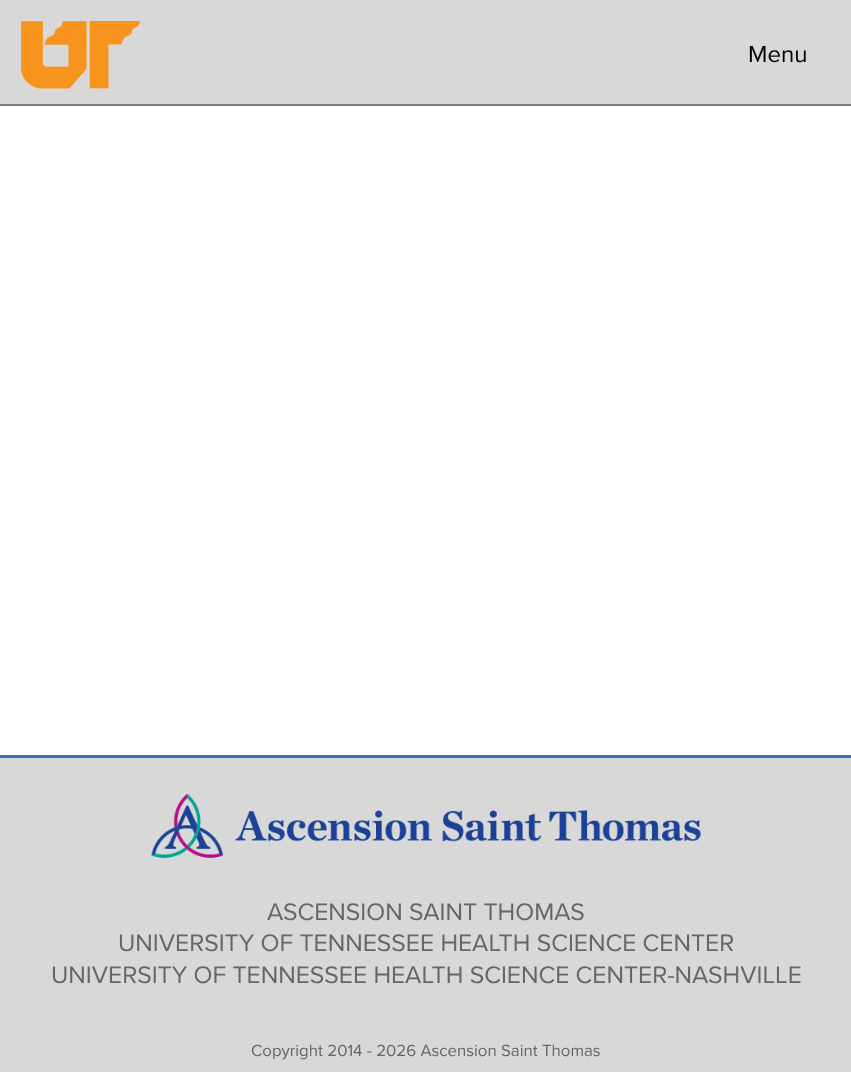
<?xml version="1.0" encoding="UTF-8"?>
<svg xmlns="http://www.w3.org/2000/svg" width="851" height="1072">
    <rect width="100%" height="100%" fill="#FFFFFF"/>
    <rect x="0" y="0" width="851" height="104" fill="#D8D8D8"/>
    <rect x="0" y="104" width="851" height="2" fill="#7D7D7D"/>
    <image x="21" y="21" width="120" height="68" href="img_01.png"/>
    <text x="748" y="62" font-family="Proxima Nova" font-size="24" fill="#000000">Menu</text>
    <rect x="0" y="758" width="851" height="314" fill="#D8D8D8"/>
    <rect x="0" y="755" width="851" height="3" fill="#4071B7"/>
    <image x="151" y="793" width="550" height="65" href="img_02.png"/>
    <text x="267" y="920" font-family="Proxima Nova" font-size="24.75" fill="#666666">ASCENSION SAINT THOMAS</text>
    <text x="118" y="951" font-family="Proxima Nova" font-size="24.75" fill="#666666">UNIVERSITY OF TENNESSEE HEALTH SCIENCE CENTER</text>
    <text x="51" y="983" font-family="Proxima Nova" font-size="24.75" fill="#666666">UNIVERSITY OF TENNESSEE HEALTH SCIENCE CENTER-NASHVILLE</text>
    <text x="251" y="1056" font-family="Proxima Nova" font-size="16.8" fill="#666666">Copyright 2014 - 2026 Ascension Saint Thomas</text>
</svg>
